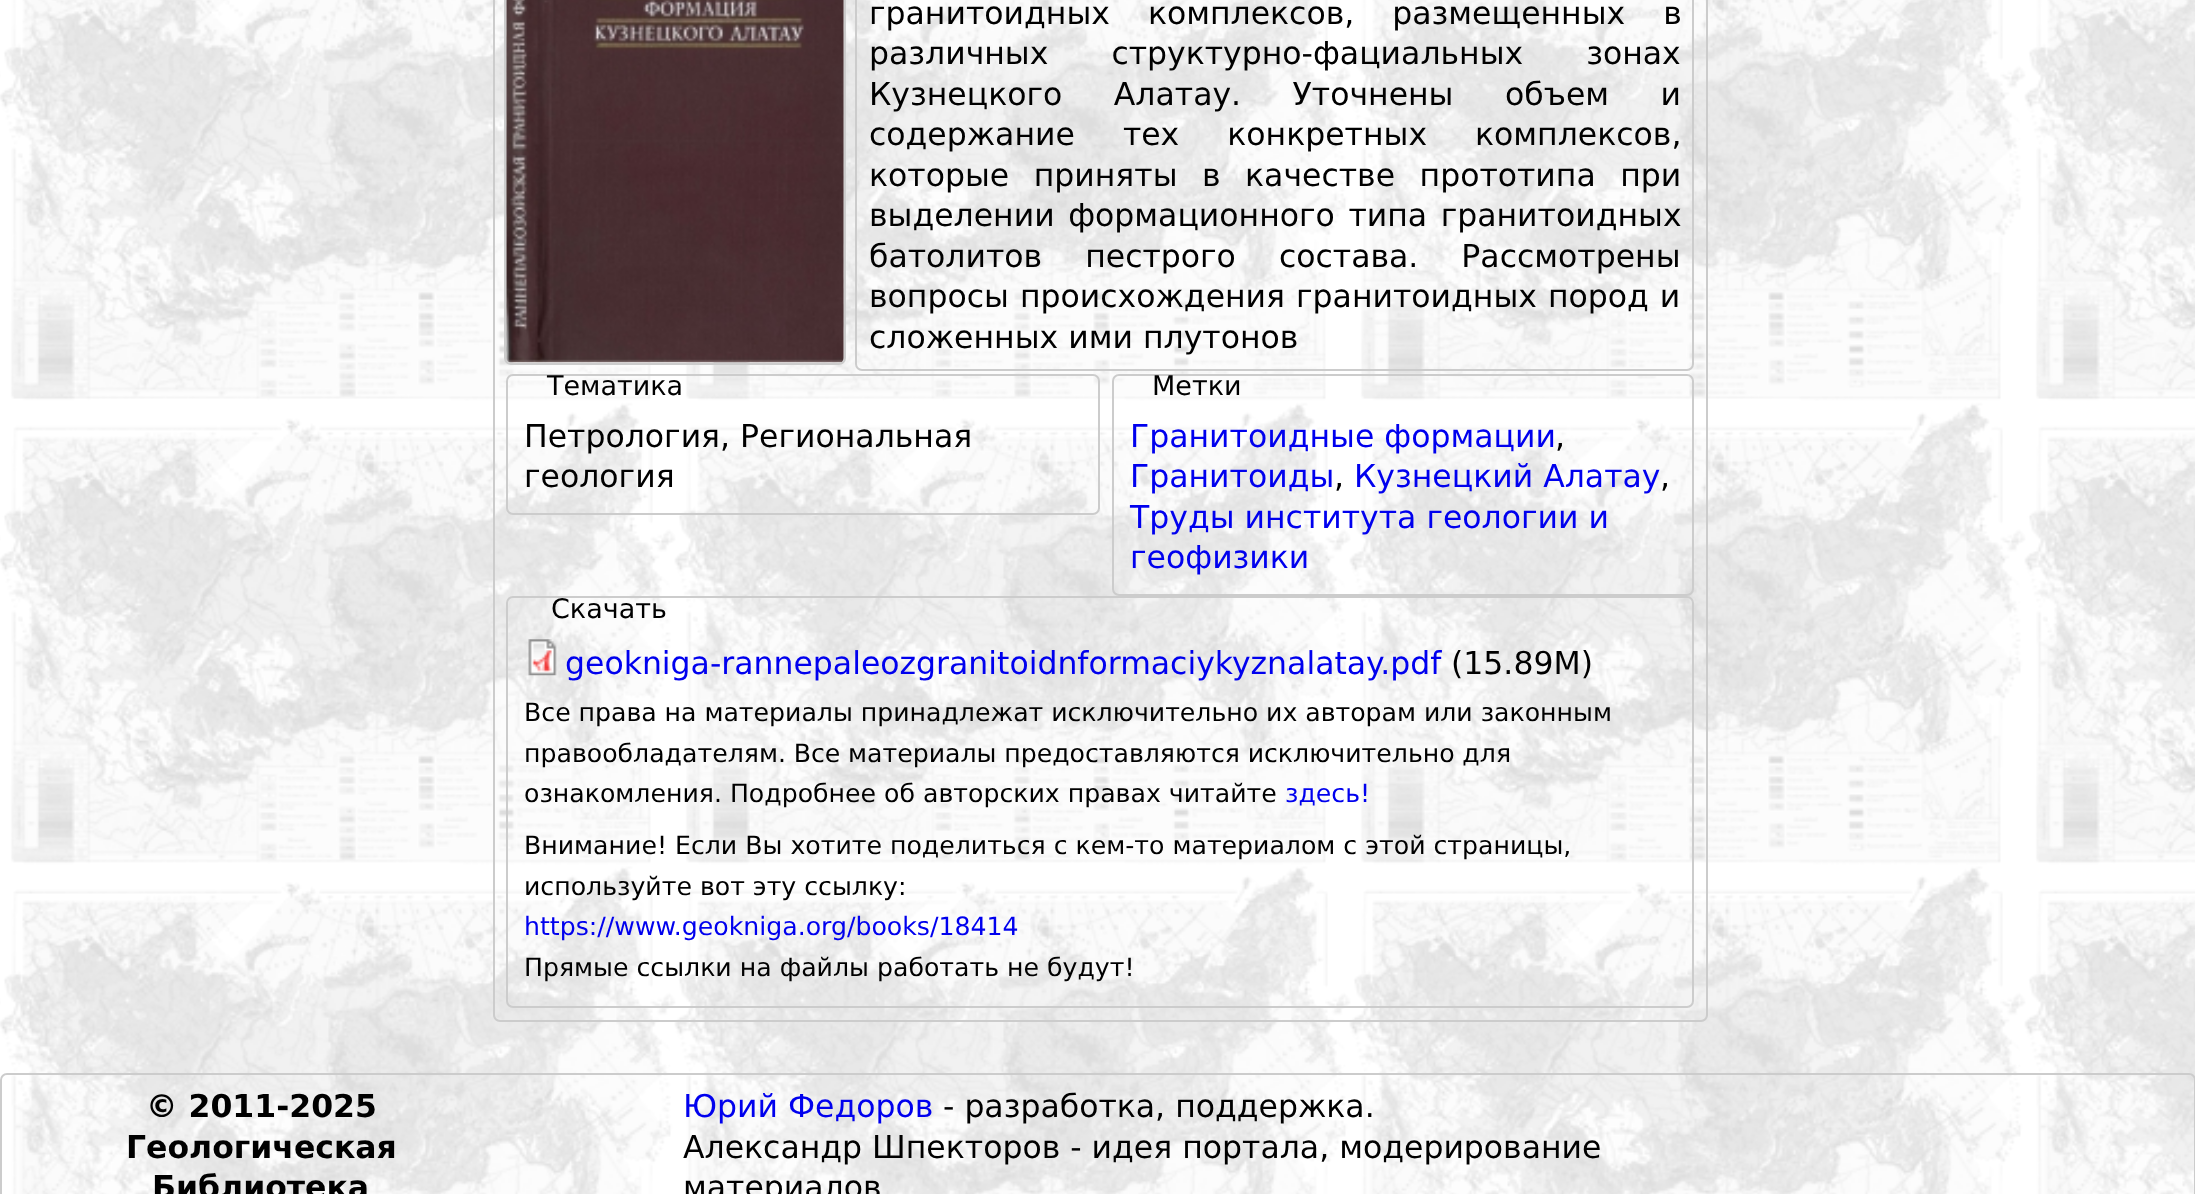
<?xml version="1.0" encoding="UTF-8"?>
<svg xmlns="http://www.w3.org/2000/svg" width="2195" height="1194">
    <rect width="100%" height="100%" fill="#FFFFFF"/>
    <image x="0" y="0" width="2195" height="1194" href="img_01.png"/>
    <rect x="494" y="-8" width="1213" height="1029" rx="6" fill="none" stroke="#CCCCCC" stroke-width="2"/>
    <rect x="505" y="-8" width="340" height="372" rx="6" fill="none" stroke="#CCCCCC" stroke-width="2"/>
    <image x="506" y="0" width="338" height="363" href="img_02.png"/>
    <rect x="856" y="-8" width="837" height="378" rx="6" fill="none" stroke="#CCCCCC" stroke-width="2"/>
    <text font-family="DejaVu Sans" font-size="31.5" fill="#000000">
        <tspan x="869" y="24" word-spacing="28">гранитоидных комплексов, размещенных в</tspan>
        <tspan x="869" y="64" word-spacing="53">различных структурно-фациальных зонах</tspan>
        <tspan x="869" y="105" word-spacing="41.5">Кузнецкого Алатау. Уточнены объем и</tspan>
        <tspan x="869" y="145" word-spacing="38">содержание тех конкретных комплексов,</tspan>
        <tspan x="869" y="186" word-spacing="14.5">которые приняты в качестве прототипа при</tspan>
        <tspan x="869" y="226" word-spacing="3.5">выделении формационного типа гранитоидных</tspan>
        <tspan x="869" y="267" word-spacing="33">батолитов пестрого состава. Рассмотрены</tspan>
        <tspan x="869" y="307" word-spacing="1">вопросы происхождения гранитоидных пород и</tspan>
        <tspan x="869" y="348">сложенных ими плутонов</tspan>
    </text>
    <rect x="507" y="375" width="592" height="139" rx="6" fill="none" stroke="#CCCCCC" stroke-width="2"/>
    <text x="547" y="395" font-family="DejaVu Sans" font-size="27" fill="#000000">Тематика</text>
    <text font-family="DejaVu Sans" font-size="31.5" fill="#000000">
        <tspan x="524" y="447">Петрология, Региональная</tspan>
        <tspan x="524" y="487">геология</tspan>
    </text>
    <rect x="1113" y="375" width="580" height="220" rx="6" fill="none" stroke="#CCCCCC" stroke-width="2"/>
    <text x="1152" y="395" font-family="DejaVu Sans" font-size="27" fill="#000000">Метки</text>
    <text x="1130" y="447" font-family="DejaVu Sans" font-size="31.5" fill="#0000EE">Гранитоидные формации</text>
    <text x="1555" y="447" font-family="DejaVu Sans" font-size="31.5" fill="#000000">,</text>
    <text x="1130" y="487" font-family="DejaVu Sans" font-size="31.5" fill="#0000EE">Гранитоиды</text>
    <text x="1334" y="487" font-family="DejaVu Sans" font-size="31.5" fill="#000000">,</text>
    <text x="1354" y="487" font-family="DejaVu Sans" font-size="31.5" fill="#0000EE">Кузнецкий Алатау</text>
    <text x="1660" y="487" font-family="DejaVu Sans" font-size="31.5" fill="#000000">,</text>
    <text font-family="DejaVu Sans" font-size="31.5" fill="#0000EE">
        <tspan x="1130" y="528">Труды института геологии и</tspan>
        <tspan x="1130" y="568">геофизики</tspan>
    </text>
    <rect x="507" y="597" width="1186" height="410" rx="6" fill="none" stroke="#CCCCCC" stroke-width="2"/>
    <text x="551" y="618" font-family="DejaVu Sans" font-size="27" fill="#000000">Скачать</text>
    <image x="528" y="639" width="29" height="37" href="img_03.png"/>
    <text x="565" y="674" font-family="DejaVu Sans" font-size="31.5" fill="#0000EE">geokniga-rannepaleozgranitoidnformaciykyznalatay.pdf</text>
    <text x="1451" y="674" font-family="DejaVu Sans" font-size="31.5" fill="#000000">(15.89M)</text>
    <text font-family="DejaVu Sans" font-size="25.2" fill="#000000">
        <tspan x="524" y="721" word-spacing="-0.1">Все права на материалы принадлежат исключительно их авторам или законным</tspan>
        <tspan x="524" y="762" word-spacing="-0.25">правообладателям. Все материалы предоставляются исключительно для</tspan>
        <tspan x="524" y="802">ознакомления. Подробнее об авторских правах читайте</tspan>
    </text>
    <text x="1285" y="802" font-family="DejaVu Sans" font-size="25.2" fill="#0000EE">здесь!</text>
    <text font-family="DejaVu Sans" font-size="25.2" fill="#000000">
        <tspan x="524" y="854">Внимание! Если Вы хотите поделиться с кем-то материалом c этой страницы,</tspan>
        <tspan x="524" y="895">используйте вот эту ссылку:</tspan>
    </text>
    <text x="524" y="935" font-family="DejaVu Sans" font-size="25.2" fill="#0000EE">https://www.geokniga.org/books/18414</text>
    <text x="524" y="976" font-family="DejaVu Sans" font-size="25.2" fill="#000000">Прямые ссылки на файлы работать не будут!</text>
    <rect x="1" y="1074" width="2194" height="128" rx="6" fill="none" stroke="#CCCCCC" stroke-width="2"/>
    <text x="146" y="1117" font-family="DejaVu Sans" font-size="31.5" font-weight="700" fill="#000000">© 2011-2025</text>
    <text x="126" y="1158" font-family="DejaVu Sans" font-size="31.5" font-weight="700" fill="#000000">Геологическая</text>
    <text x="152" y="1198" font-family="DejaVu Sans" font-size="31.5" font-weight="700" fill="#000000">Библиотека</text>
    <text x="683" y="1117" font-family="DejaVu Sans" font-size="31.5" fill="#0000EE">Юрий Федоров</text>
    <text x="943" y="1117" font-family="DejaVu Sans" font-size="31.5" fill="#000000">- разработка, поддержка.</text>
    <text font-family="DejaVu Sans" font-size="31.5" fill="#000000">
        <tspan x="683" y="1158">Александр Шпекторов - идея портала, модерирование</tspan>
        <tspan x="683" y="1198">материалов</tspan>
    </text>
</svg>
